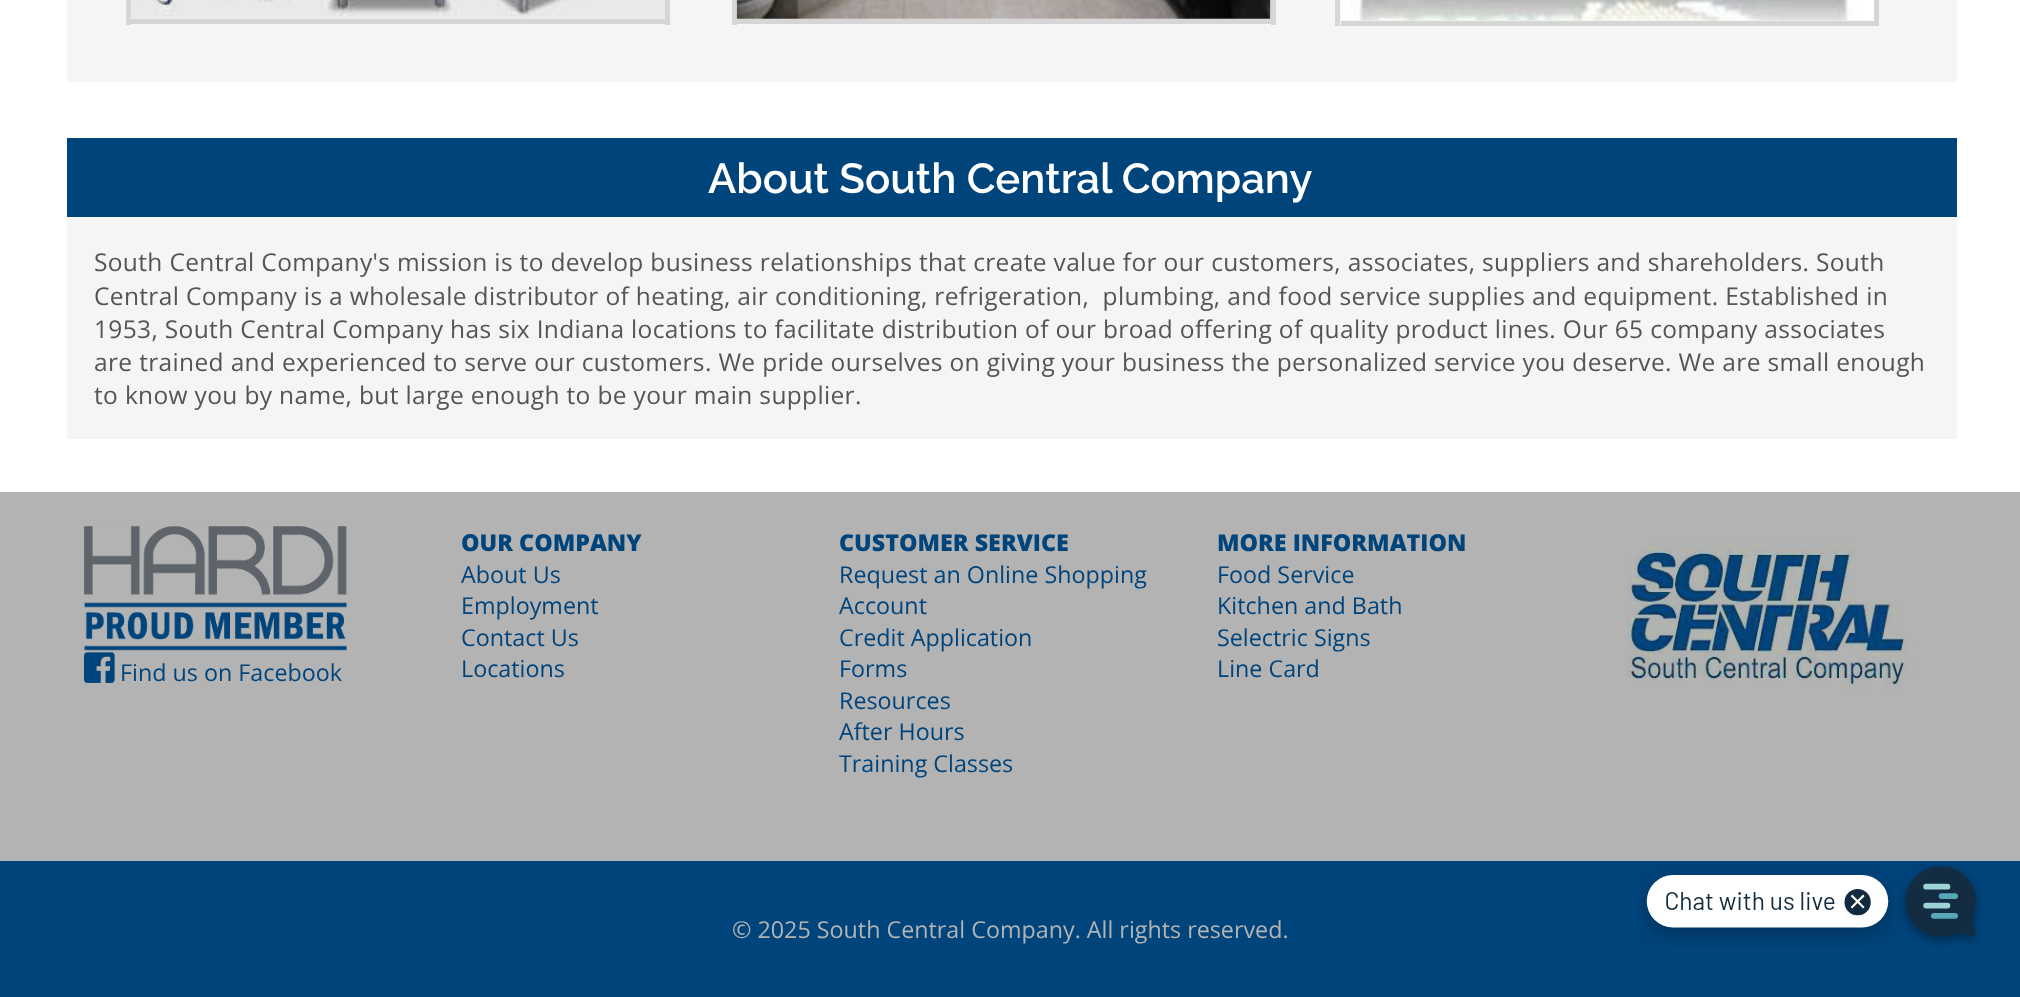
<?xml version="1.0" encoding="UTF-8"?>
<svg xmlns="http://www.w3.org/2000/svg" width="2020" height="997">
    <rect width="100%" height="100%" fill="#FFFFFF"/>
    <rect x="67" y="0" width="1890" height="82" fill="#F5F5F5"/>
    <rect x="665" y="0" width="5" height="25" fill="#D6D6D6"/>
    <rect x="126" y="0" width="5" height="25" fill="#D6D6D6"/>
    <rect x="131" y="19" width="534" height="5" fill="#D6D6D6"/>
    <image x="131" y="0" width="534" height="19" href="img_01.png"/>
    <rect x="1271" y="0" width="5" height="25" fill="#D6D6D6"/>
    <rect x="732" y="0" width="5" height="25" fill="#D6D6D6"/>
    <rect x="737" y="19" width="534" height="5" fill="#D6D6D6"/>
    <image x="736" y="0" width="535" height="19" href="img_02.png"/>
    <rect x="1874" y="0" width="5" height="26" fill="#D6D6D6"/>
    <rect x="1335" y="0" width="5" height="26" fill="#D6D6D6"/>
    <rect x="1341" y="21" width="533" height="5" fill="#D6D6D6"/>
    <image x="1341" y="0" width="533" height="21" href="img_03.png"/>
    <rect x="67" y="138" width="1890" height="79" fill="#00447C"/>
    <text x="708" y="193" font-family="Raleway" font-size="42" font-weight="600" fill="#FFFFFF">About South Central Company</text>
    <rect x="67" y="217" width="1890" height="222" fill="#F5F5F5"/>
    <text font-family="Open Sans" font-size="24.5" letter-spacing="0.35" fill="#555555" xml:space="preserve"><tspan x="94" y="271">South Central Company's mission is to develop business relationships that create value for our customers, associates, suppliers and shareholders. South</tspan><tspan x="94" y="305">Central Company is a wholesale distributor of heating, air conditioning, refrigeration,  plumbing, and food service supplies and equipment. Established in</tspan><tspan x="94" y="338">1953, South Central Company has six Indiana locations to facilitate distribution of our broad offering of quality product lines. Our 65 company associates</tspan><tspan x="94" y="371">are trained and experienced to serve our customers. We pride ourselves on giving your business the personalized service you deserve. We are small enough</tspan><tspan x="94" y="404">to know you by name, but large enough to be your main supplier.</tspan></text>
    <rect x="0" y="492" width="2020" height="369" fill="#B3B3B3"/>
    <image x="84" y="526" width="263" height="125" href="img_04.png"/>
    <image x="84" y="652" width="31" height="31" href="img_05.png"/>
    <text x="120" y="681" font-family="Open Sans" font-size="23.3" fill="#00447C">Find us on Facebook</text>
    <text x="461" y="551" font-family="Open Sans" font-size="23.3" font-weight="800" fill="#00447C">OUR COMPANY</text>
    <text font-family="Open Sans" font-size="23.3" fill="#00447C">
        <tspan x="461" y="583">About Us</tspan>
        <tspan x="461" y="614">Employment</tspan>
        <tspan x="461" y="646">Contact Us</tspan>
        <tspan x="461" y="677">Locations</tspan>
    </text>
    <text x="839" y="551" font-family="Open Sans" font-size="23.3" font-weight="800" fill="#00447C">CUSTOMER SERVICE</text>
    <text font-family="Open Sans" font-size="23.3" fill="#00447C">
        <tspan x="839" y="583">Request an Online Shopping</tspan>
        <tspan x="839" y="614">Account</tspan>
        <tspan x="839" y="646">Credit Application</tspan>
        <tspan x="839" y="677">Forms</tspan>
        <tspan x="839" y="709">Resources</tspan>
        <tspan x="839" y="740">After Hours</tspan>
        <tspan x="839" y="772">Training Classes</tspan>
    </text>
    <text x="1217" y="551" font-family="Open Sans" font-size="23.3" font-weight="800" fill="#00447C">MORE INFORMATION</text>
    <text font-family="Open Sans" font-size="23.3" fill="#00447C">
        <tspan x="1217" y="583">Food Service</tspan>
        <tspan x="1217" y="614">Kitchen and Bath</tspan>
        <tspan x="1217" y="646">Selectric Signs</tspan>
        <tspan x="1217" y="677">Line Card</tspan>
    </text>
    <image x="1626" y="541" width="290" height="152" href="img_06.png"/>
    <rect x="0" y="861" width="2020" height="136" fill="#00447C"/>
    <text x="732" y="938" font-family="Open Sans" font-size="23.3" fill="#B3B3B3">© 2025 South Central Company. All rights reserved.</text>
    <image x="1637" y="863" width="345" height="84" href="img_07.png"/>
</svg>
